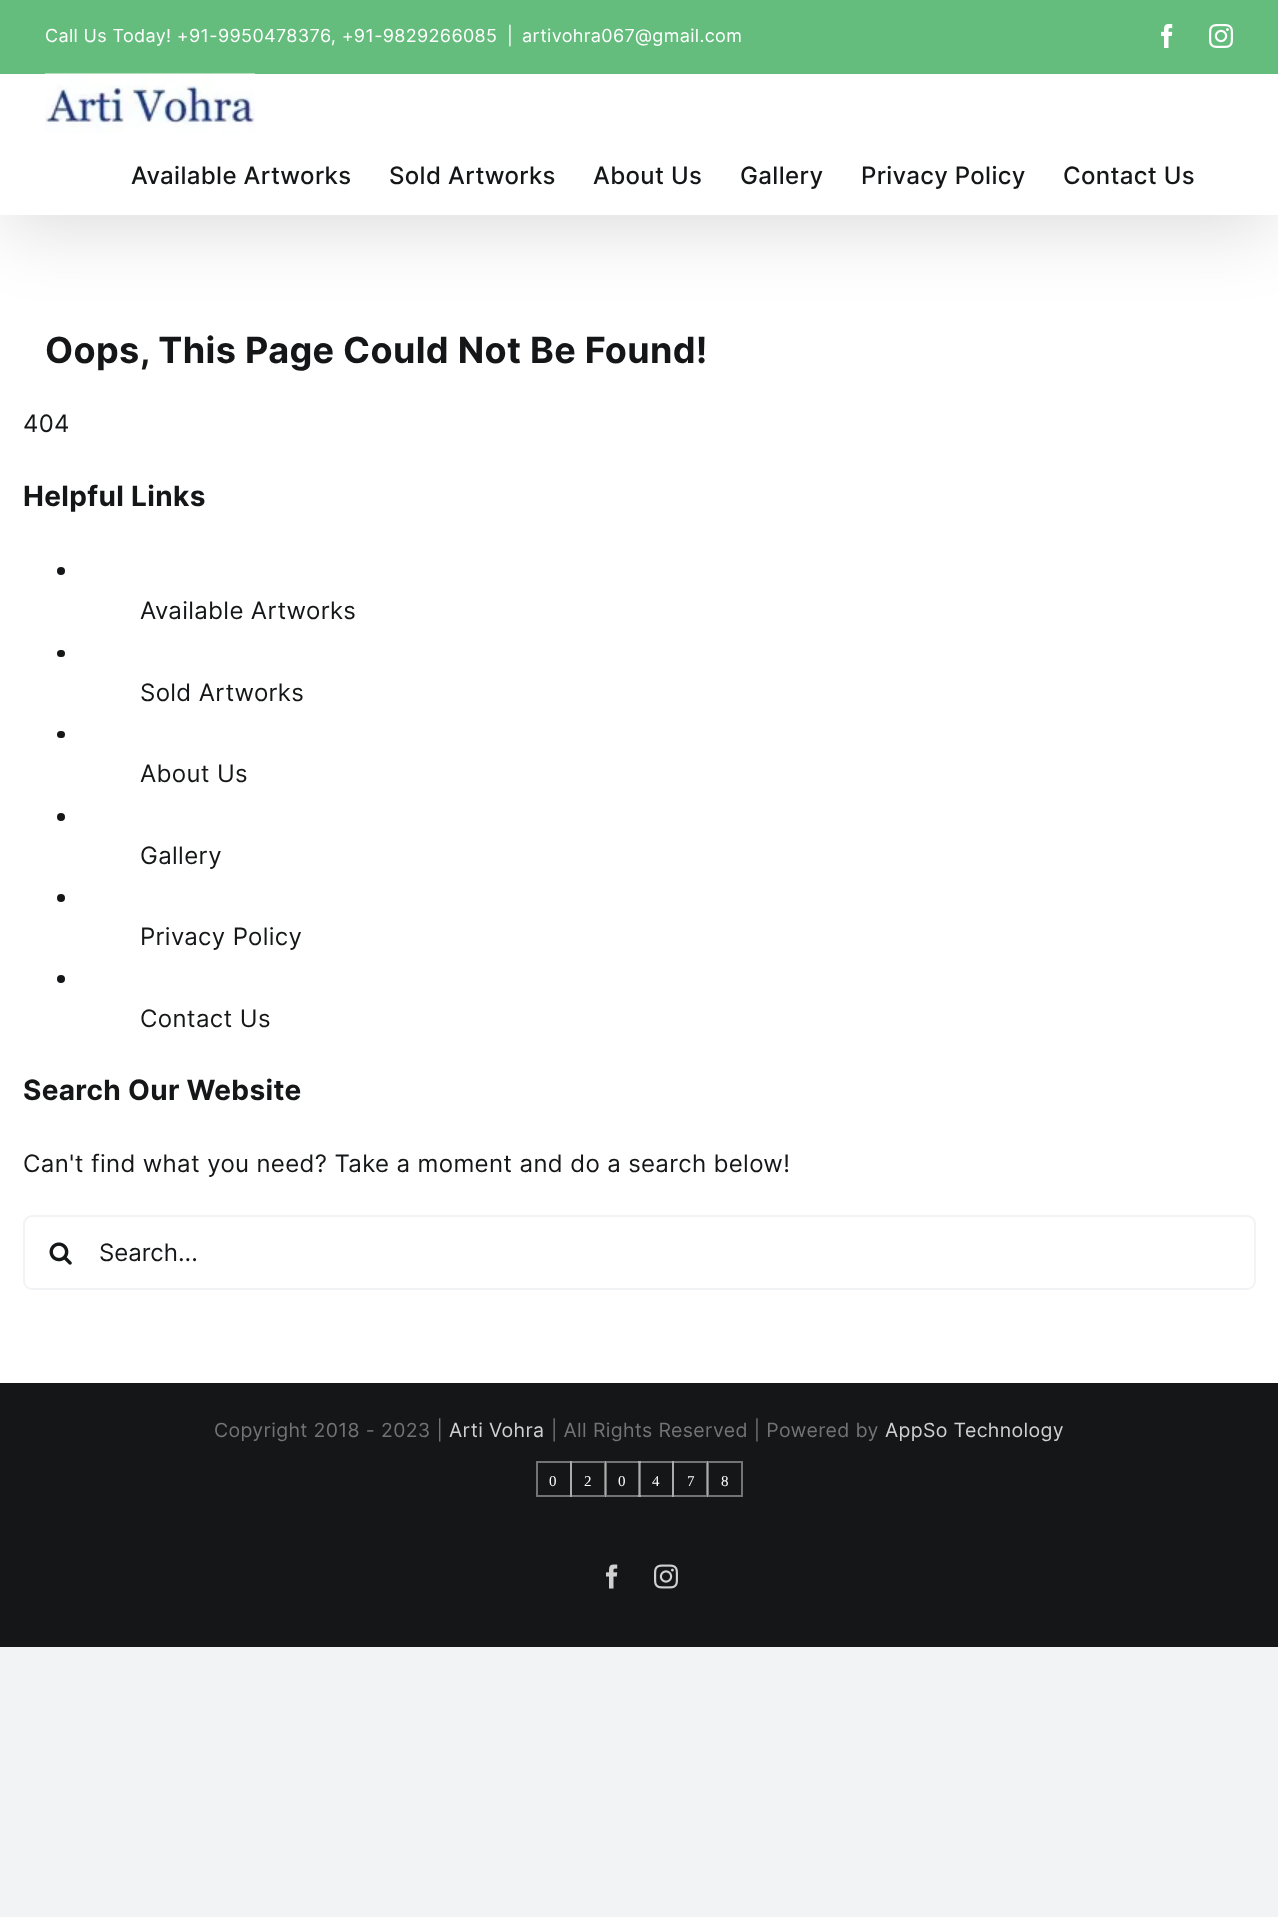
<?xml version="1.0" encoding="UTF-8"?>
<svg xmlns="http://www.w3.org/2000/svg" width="1278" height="1917">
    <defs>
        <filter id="blur1" x="-50%" y="-200%" width="200%" height="500%"><feGaussianBlur stdDeviation="37.5"/></filter>
    </defs>
    <rect width="100%" height="100%" fill="#F2F3F5"/>
    <rect x="0" y="215" width="1278" height="1168" fill="#FFFFFF"/>
    <rect x="3" y="18" width="1272" height="209" fill="#000000" fill-opacity="0.14" filter="url(#blur1)"/>
    <rect x="0" y="0" width="1278" height="74" fill="#65BD7D"/>
    <text x="45" y="42" font-family="Inter" font-size="18" letter-spacing="0.35" fill="#FFFFFF">Call Us Today! +91-9950478376, +91-9829266085</text>
    <text x="507" y="42" font-family="Inter" font-size="18" letter-spacing="0.35" fill="#FFFFFF">|</text>
    <text x="522" y="42" font-family="Inter" font-size="18" letter-spacing="0.35" fill="#FFFFFF">artivohra067@gmail.com</text>
    <image x="1161" y="24" width="12" height="24" href="img_01.png"/>
    <image x="1209" y="24" width="24" height="24" href="img_02.png"/>
    <rect x="0" y="74" width="1278" height="141" fill="#FFFFFF"/>
    <image x="45" y="73" width="210" height="60" href="img_03.png"/>
    <text x="131" y="184" font-family="Inter" font-size="24" font-weight="500" letter-spacing="0.35" fill="#141617">Available Artworks</text>
    <text x="389" y="184" font-family="Inter" font-size="24" font-weight="500" letter-spacing="0.35" fill="#141617">Sold Artworks</text>
    <text x="593" y="184" font-family="Inter" font-size="24" font-weight="500" letter-spacing="0.35" fill="#141617">About Us</text>
    <text x="740" y="184" font-family="Inter" font-size="24" font-weight="500" letter-spacing="0.35" fill="#141617">Gallery</text>
    <text x="861" y="184" font-family="Inter" font-size="24" font-weight="500" letter-spacing="0.35" fill="#141617">Privacy Policy</text>
    <text x="1063" y="184" font-family="Inter" font-size="24" font-weight="500" letter-spacing="0.35" fill="#141617">Contact Us</text>
    <text x="45" y="363" font-family="Inter" font-size="36" font-weight="700" letter-spacing="0.35" fill="#141617">Oops, This Page Could Not Be Found!</text>
    <text x="23" y="432" font-family="Inter" font-size="24" letter-spacing="0.35" fill="#141617">404</text>
    <text x="23" y="506" font-family="Inter" font-size="28" font-weight="700" letter-spacing="0.35" fill="#141617">Helpful Links</text>
    <circle cx="61" cy="571" r="4" fill="#141617"/>
    <text x="140" y="619" font-family="Inter" font-size="24" letter-spacing="0.35" fill="#141617">Available Artworks</text>
    <rect x="57" y="650" width="8" height="7" rx="3.5" fill="#141617"/>
    <text x="140" y="701" font-family="Inter" font-size="24" letter-spacing="0.35" fill="#141617">Sold Artworks</text>
    <rect x="57" y="731" width="8" height="7" rx="3.5" fill="#141617"/>
    <text x="140" y="782" font-family="Inter" font-size="24" letter-spacing="0.35" fill="#141617">About Us</text>
    <circle cx="61" cy="817" r="4" fill="#141617"/>
    <text x="140" y="864" font-family="Inter" font-size="24" letter-spacing="0.35" fill="#141617">Gallery</text>
    <circle cx="61" cy="898" r="4" fill="#141617"/>
    <text x="140" y="945" font-family="Inter" font-size="24" letter-spacing="0.35" fill="#141617">Privacy Policy</text>
    <circle cx="61" cy="979" r="4" fill="#141617"/>
    <text x="140" y="1027" font-family="Inter" font-size="24" letter-spacing="0.35" fill="#141617">Contact Us</text>
    <text x="23" y="1100" font-family="Inter" font-size="28" font-weight="700" letter-spacing="0.35" fill="#141617">Search Our Website</text>
    <text x="23" y="1172" font-family="Inter" font-size="24" letter-spacing="0.35" fill="#141617">Can't find what you need? Take a moment and do a search below!</text>
    <rect x="24" y="1216" width="1231" height="73" rx="8" fill="none" stroke="#F2F3F5" stroke-width="2"/>
    <image x="49" y="1242" width="23" height="23" href="img_04.png"/>
    <text x="99" y="1261" font-family="Inter" font-size="24" fill="#141617">Search...</text>
    <rect x="0" y="1383" width="1278" height="264" fill="#141617"/>
    <text x="214" y="1437" font-family="Inter" font-size="19.5" letter-spacing="0.35" fill="#727374">Copyright 2018 - 2023 |</text>
    <text x="449" y="1437" font-family="Inter" font-size="19.5" letter-spacing="0.35" fill="#D0D0D1">Arti Vohra</text>
    <text x="551" y="1437" font-family="Inter" font-size="19.5" letter-spacing="0.35" fill="#727374">| All Rights Reserved | Powered by</text>
    <text x="885" y="1437" font-family="Inter" font-size="19.5" letter-spacing="0.35" fill="#D0D0D1">AppSo Technology</text>
    <rect x="537" y="1462" width="34" height="34" fill="none" stroke="#727374" stroke-width="2"/>
    <text x="549" y="1486" font-family="Liberation Serif" font-size="15" letter-spacing="0.35" fill="#FFFFFF">0</text>
    <rect x="571" y="1462" width="34" height="34" fill="none" stroke="#FFFFFF" stroke-opacity="0.4" stroke-width="2"/>
    <text x="584" y="1486" font-family="Liberation Serif" font-size="15" letter-spacing="0.35" fill="#FFFFFF">2</text>
    <rect x="606" y="1462" width="34" height="34" fill="none" stroke="#FFFFFF" stroke-opacity="0.4" stroke-width="2"/>
    <text x="618" y="1486" font-family="Liberation Serif" font-size="15" letter-spacing="0.35" fill="#FFFFFF">0</text>
    <rect x="639" y="1462" width="34" height="34" fill="none" stroke="#FFFFFF" stroke-opacity="0.4" stroke-width="2"/>
    <text x="652" y="1486" font-family="Liberation Serif" font-size="15" letter-spacing="0.35" fill="#FFFFFF">4</text>
    <rect x="673" y="1462" width="34" height="34" fill="none" stroke="#FFFFFF" stroke-opacity="0.4" stroke-width="2"/>
    <text x="687" y="1486" font-family="Liberation Serif" font-size="15" letter-spacing="0.35" fill="#FFFFFF">7</text>
    <rect x="708" y="1462" width="34" height="34" fill="none" stroke="#FFFFFF" stroke-opacity="0.4" stroke-width="2"/>
    <text x="721" y="1486" font-family="Liberation Serif" font-size="15" letter-spacing="0.35" fill="#FFFFFF">8</text>
    <image x="606" y="1564" width="12" height="25" href="img_05.png"/>
    <image x="654" y="1564" width="24" height="25" href="img_06.png"/>
</svg>
